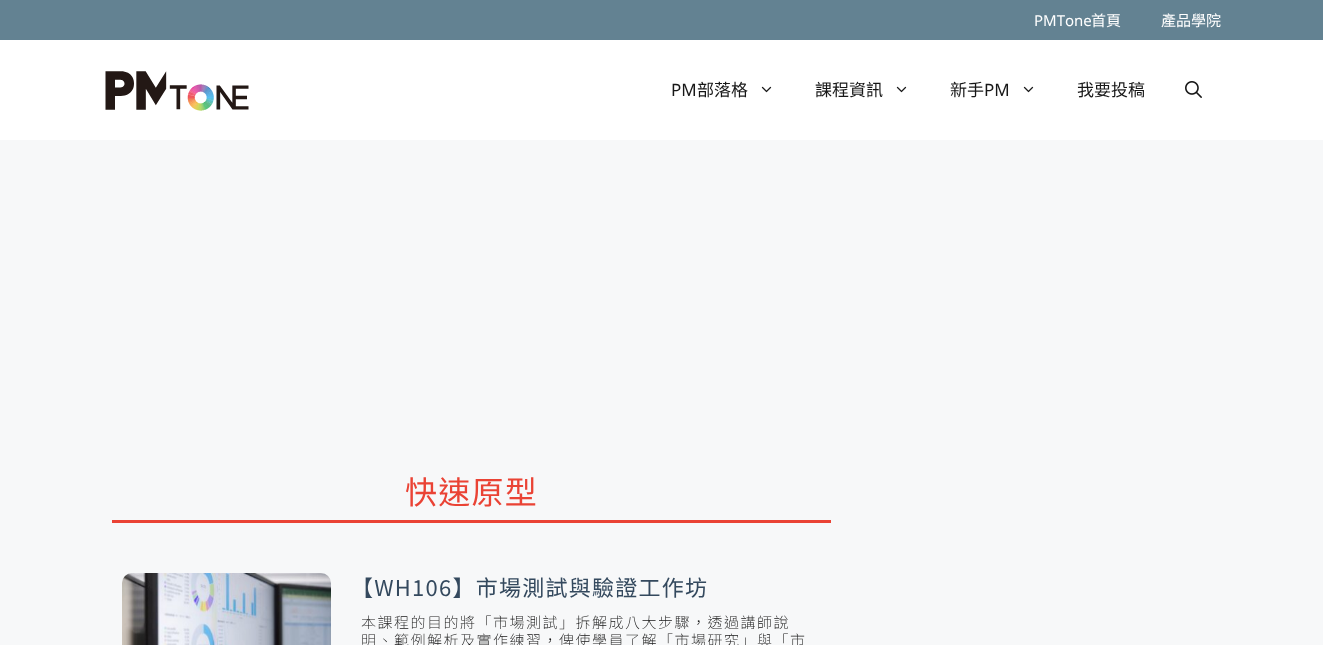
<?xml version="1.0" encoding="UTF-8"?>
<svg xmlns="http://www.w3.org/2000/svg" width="1323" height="645">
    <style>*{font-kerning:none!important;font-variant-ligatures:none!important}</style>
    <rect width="100%" height="100%" fill="#F7F8F9"/>
    <rect x="0" y="0" width="1323" height="40" fill="#638292"/>
    <text x="1034" y="26" font-family="Noto Sans" font-size="15" fill="#FFFFFF">PMTone</text>
    <text x="1091" y="26" font-family="Noto Sans CJK TC" font-size="15" fill="#FFFFFF">首頁</text>
    <text x="1161" y="26" font-family="Noto Sans CJK TC" font-size="15" fill="#FFFFFF">產品學院</text>
    <rect x="0" y="40" width="1323" height="100" fill="#FFFFFF"/>
    <image x="105" y="71" width="144" height="40" href="img_01.png"/>
    <text x="671" y="96" font-family="Noto Sans" font-size="17" fill="#171717">PM</text>
    <text x="697" y="96" font-family="Noto Sans CJK TC" font-size="17" fill="#171717">部落格</text>
    <image x="761" y="86" width="11" height="7" href="img_02.png"/>
    <text x="815" y="96" font-family="Noto Sans CJK TC" font-size="17" fill="#171717">課程資訊</text>
    <image x="896" y="86" width="11" height="7" href="img_02.png"/>
    <text x="950" y="96" font-family="Noto Sans CJK TC" font-size="17" fill="#171717">新手</text>
    <text x="984" y="96" font-family="Noto Sans" font-size="17" fill="#171717">PM</text>
    <image x="1023" y="86" width="11" height="7" href="img_02.png"/>
    <text x="1077" y="96" font-family="Noto Sans CJK TC" font-size="17" fill="#171717">我要投稿</text>
    <image x="1185" y="81" width="17" height="17" href="img_03.png"/>
    <rect x="112" y="520" width="719" height="3" fill="#EA4335"/>
    <text x="405" y="504" font-family="Noto Sans TC" font-size="32" letter-spacing="1.25" fill="#EA4335">快速原型</text>
    <image x="122" y="573" width="209" height="72" href="img_04.png"/>
    <text x="351" y="596" font-family="Noto Sans TC" font-size="22" letter-spacing="1.25" fill="#34495E">【WH106】市場測試與驗證工作坊</text>
    <text font-family="Noto Sans TC" font-size="15" font-weight="200" letter-spacing="1.5" fill="#171717">
        <tspan x="361" y="628">本課程的目的將「市場測試」拆解成八大步驟，透過講師說</tspan>
        <tspan x="361" y="646">明、範例解析及實作練習，俾使學員了解「市場研究」與「市</tspan>
    </text>
</svg>
